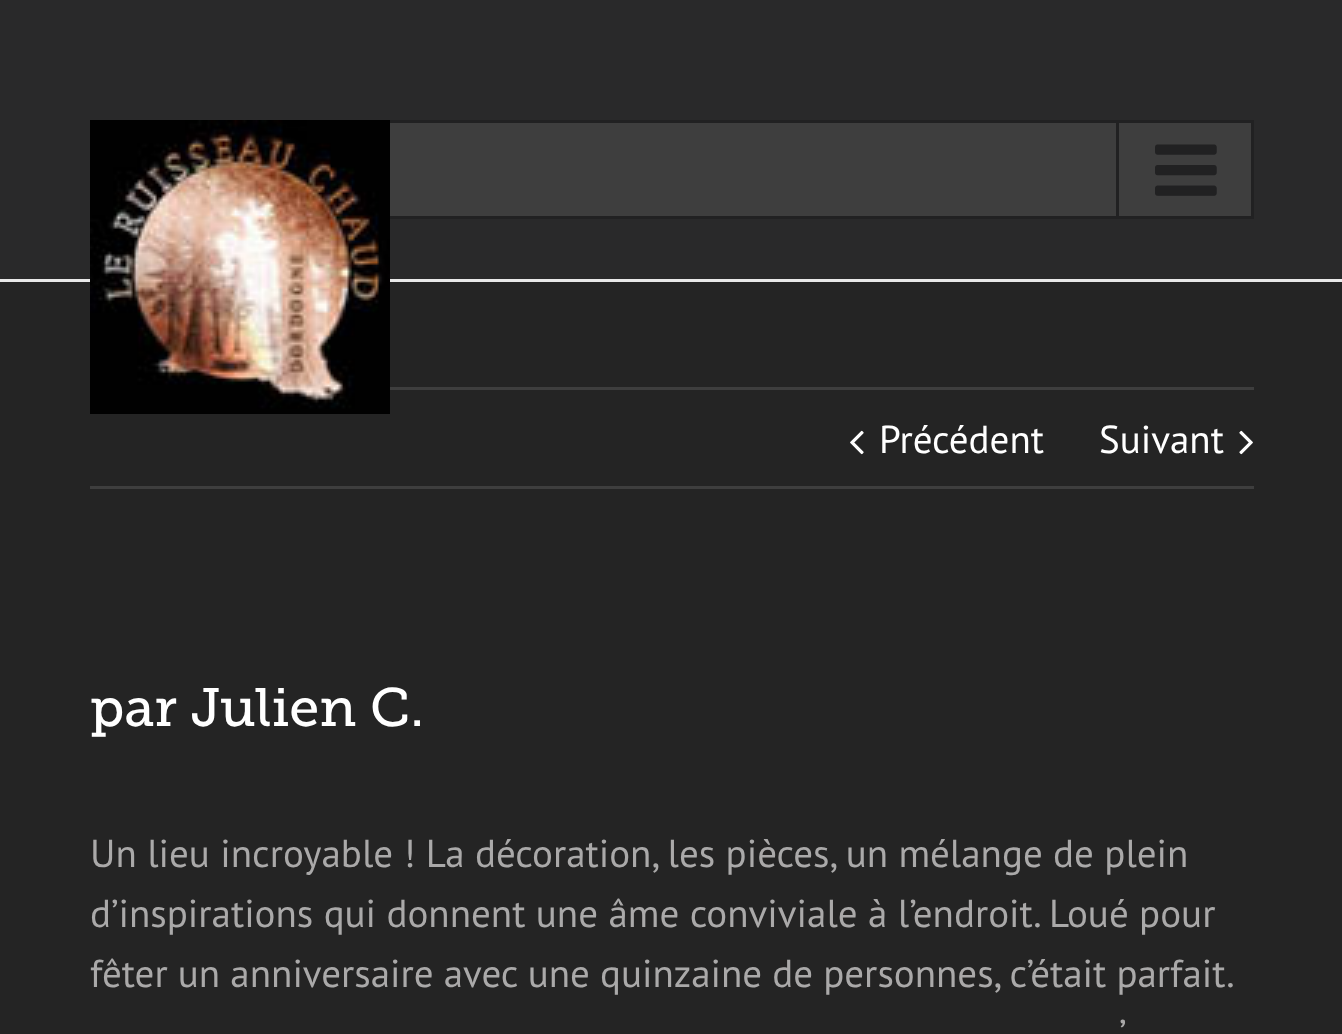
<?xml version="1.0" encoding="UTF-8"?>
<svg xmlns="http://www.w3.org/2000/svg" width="1342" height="1034">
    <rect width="100%" height="100%" fill="#242424"/>
    <rect x="0" y="279" width="1342" height="3" fill="#E8E8E8"/>
    <rect x="0" y="0" width="1342" height="279" fill="#29292A"/>
    <rect x="390" y="123" width="861" height="93" fill="#3E3E3E"/>
    <rect x="91.5" y="121.5" width="1161" height="96" fill="none" stroke="#212122" stroke-width="3"/>
    <rect x="1116" y="123" width="3" height="93" fill="#212122"/>
    <image x="1155" y="144" width="62" height="52" href="img_01.png"/>
    <image x="90" y="120" width="300" height="294" href="img_02.png"/>
    <rect x="390" y="387" width="864" height="3" fill="#3E3E3E"/>
    <rect x="90" y="486" width="1164" height="3" fill="#3E3E3E"/>
    <image x="850" y="430" width="14" height="25" href="img_03.png"/>
    <text x="879" y="453" font-family="PT Sans" font-size="39" fill="#FFFFFF">Précédent</text>
    <text x="1099" y="453" font-family="PT Sans" font-size="39" fill="#FFFFFF">Suivant</text>
    <image x="1239" y="430" width="14" height="25" href="img_04.png"/>
    <text x="90" y="726" font-family="Museo Slab" font-size="54" fill="#FFFFFF">par Julien C.</text>
    <text font-family="PT Sans" font-size="39" fill="#AAA9A9">
        <tspan x="90" y="867">Un lieu incroyable ! La décoration, les pièces, un mélange de plein</tspan>
        <tspan x="90" y="927">d’inspirations qui donnent une âme conviviale à l’endroit. Loué pour</tspan>
        <tspan x="90" y="987" word-spacing="-0.25">fêter un anniversaire avec une quinzaine de personnes, c’était parfait.</tspan>
    </text>
    <text x="1119" y="1047" font-family="PT Sans" font-size="39" fill="#AAA9A9">’</text>
</svg>
